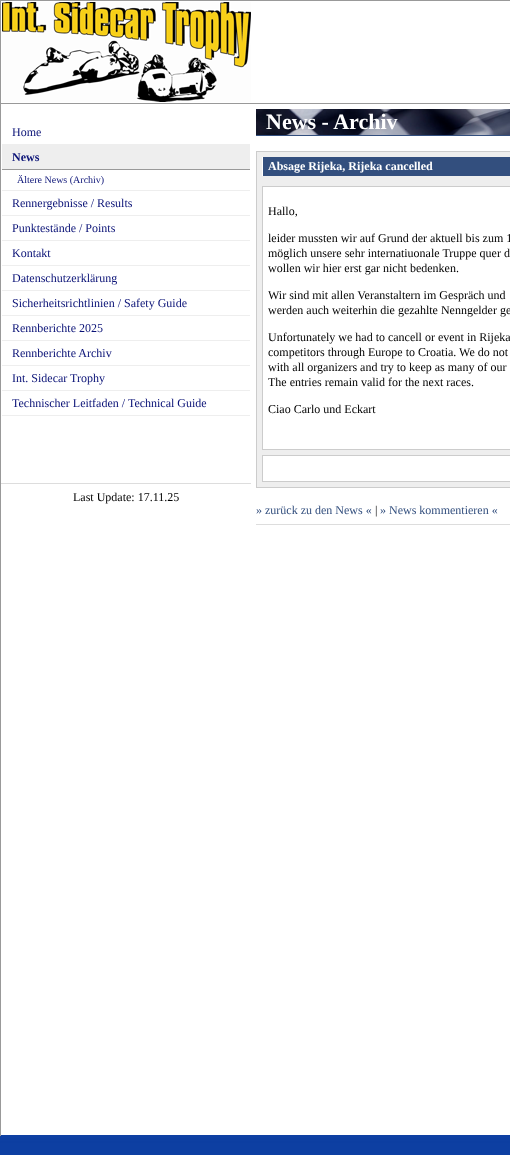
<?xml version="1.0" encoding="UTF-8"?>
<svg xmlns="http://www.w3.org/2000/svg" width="510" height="1155">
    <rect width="100%" height="100%" fill="#FFFFFF"/>
    <image x="0" y="1135" width="510" height="20" href="img_01.png"/>
    <rect x="0" y="0" width="510" height="1" fill="#999999"/>
    <rect x="0" y="103" width="1" height="1033" fill="#999999"/>
    <rect x="0" y="103" width="510" height="1" fill="#999999"/>
    <rect x="0" y="0" width="1" height="104" fill="#999999"/>
    <image x="2" y="2" width="249" height="100" href="img_02.png"/>
    <rect x="2" y="144" width="248" height="25" fill="#EEEEEE"/>
    <text x="12" y="136" font-family="Liberation Serif" font-size="12" fill="#091176">Home</text>
    <rect x="2" y="169" width="248" height="1" fill="#999999"/>
    <text x="12" y="161" font-family="Liberation Serif" font-size="12" font-weight="700" fill="#091176">News</text>
    <rect x="2" y="190" width="248" height="1" fill="#EEEEEE"/>
    <text x="17" y="183" font-family="Liberation Serif" font-size="10" fill="#091176">Ältere News (Archiv)</text>
    <rect x="2" y="215" width="248" height="1" fill="#EEEEEE"/>
    <text x="12" y="207" font-family="Liberation Serif" font-size="12" fill="#091176">Rennergebnisse / Results</text>
    <rect x="2" y="240" width="248" height="1" fill="#EEEEEE"/>
    <text x="12" y="232" font-family="Liberation Serif" font-size="12" fill="#091176">Punktestände / Points</text>
    <rect x="2" y="265" width="248" height="1" fill="#EEEEEE"/>
    <text x="12" y="257" font-family="Liberation Serif" font-size="12" fill="#091176">Kontakt</text>
    <rect x="2" y="290" width="248" height="1" fill="#EEEEEE"/>
    <text x="12" y="282" font-family="Liberation Serif" font-size="12" fill="#091176">Datenschutzerklärung</text>
    <rect x="2" y="315" width="248" height="1" fill="#EEEEEE"/>
    <text x="12" y="307" font-family="Liberation Serif" font-size="12" fill="#091176">Sicherheitsrichtlinien / Safety Guide</text>
    <rect x="2" y="340" width="248" height="1" fill="#EEEEEE"/>
    <text x="12" y="332" font-family="Liberation Serif" font-size="12" fill="#091176">Rennberichte 2025</text>
    <rect x="2" y="365" width="248" height="1" fill="#EEEEEE"/>
    <text x="12" y="357" font-family="Liberation Serif" font-size="12" fill="#091176">Rennberichte Archiv</text>
    <rect x="2" y="390" width="248" height="1" fill="#EEEEEE"/>
    <text x="12" y="382" font-family="Liberation Serif" font-size="12" fill="#091176">Int. Sidecar Trophy</text>
    <rect x="2" y="415" width="248" height="1" fill="#EEEEEE"/>
    <text x="12" y="407" font-family="Liberation Serif" font-size="12" fill="#091176">Technischer Leitfaden / Technical Guide</text>
    <rect x="1" y="483" width="250" height="1" fill="#DDDDDD"/>
    <text x="73" y="501" font-family="Liberation Serif" font-size="12" fill="#000000">Last Update: 17.11.25</text>
    <image x="256" y="109" width="254" height="26" href="img_03.png"/>
    <rect x="256" y="135" width="254" height="1" fill="#334F7E"/>
    <text x="266" y="129" font-family="Liberation Serif" font-size="22" font-weight="700" fill="#FFFFFF">News - Archiv</text>
    <rect x="256.5" y="151.5" width="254" height="336" fill="#EEEEEE" stroke="#CCCCCC"/>
    <rect x="263" y="157" width="247" height="19" fill="#334F7E"/>
    <rect x="262" y="157" width="1" height="19" fill="#FFFFFF"/>
    <text x="268" y="170" font-family="Liberation Serif" font-size="12" font-weight="700" fill="#FFFFFF">Absage Rijeka, Rijeka cancelled</text>
    <rect x="262.5" y="186.5" width="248" height="263" fill="#FFFFFF" stroke="#CCCCCC"/>
    <text x="268" y="215" font-family="Liberation Serif" font-size="12" fill="#000000">Hallo,</text>
    <text font-family="Liberation Serif" font-size="12" fill="#000000">
        <tspan x="268" y="242">leider mussten wir auf Grund der aktuell bis zum 1</tspan>
        <tspan x="268" y="257">möglich unsere sehr internatiuonale Truppe quer d</tspan>
        <tspan x="268" y="272">wollen wir hier erst gar nicht bedenken.</tspan>
    </text>
    <text font-family="Liberation Serif" font-size="12" fill="#000000">
        <tspan x="268" y="299">Wir sind mit allen Veranstaltern im Gespräch und</tspan>
        <tspan x="268" y="314">werden auch weiterhin die gezahlte Nenngelder ge</tspan>
    </text>
    <text font-family="Liberation Serif" font-size="12" fill="#000000">
        <tspan x="268" y="341">Unfortunately we had to cancell or event in Rijeka</tspan>
        <tspan x="268" y="356">competitors through Europe to Croatia. We do not</tspan>
        <tspan x="268" y="371">with all organizers and try to keep as many of our</tspan>
        <tspan x="268" y="386">The entries remain valid for the next races.</tspan>
    </text>
    <text x="268" y="413" font-family="Liberation Serif" font-size="12" fill="#000000">Ciao Carlo und Eckart</text>
    <rect x="262.5" y="455.5" width="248" height="26" fill="#FFFFFF" stroke="#CCCCCC"/>
    <text x="256" y="514" font-family="Liberation Serif" font-size="12" fill="#334F7E">» zurück zu den News «</text>
    <text x="375" y="514" font-family="Liberation Serif" font-size="12" fill="#000000">|</text>
    <text x="380" y="514" font-family="Liberation Serif" font-size="12" fill="#334F7E">» News kommentieren «</text>
    <rect x="256" y="524" width="254" height="1" fill="#DDDDDD"/>
</svg>
